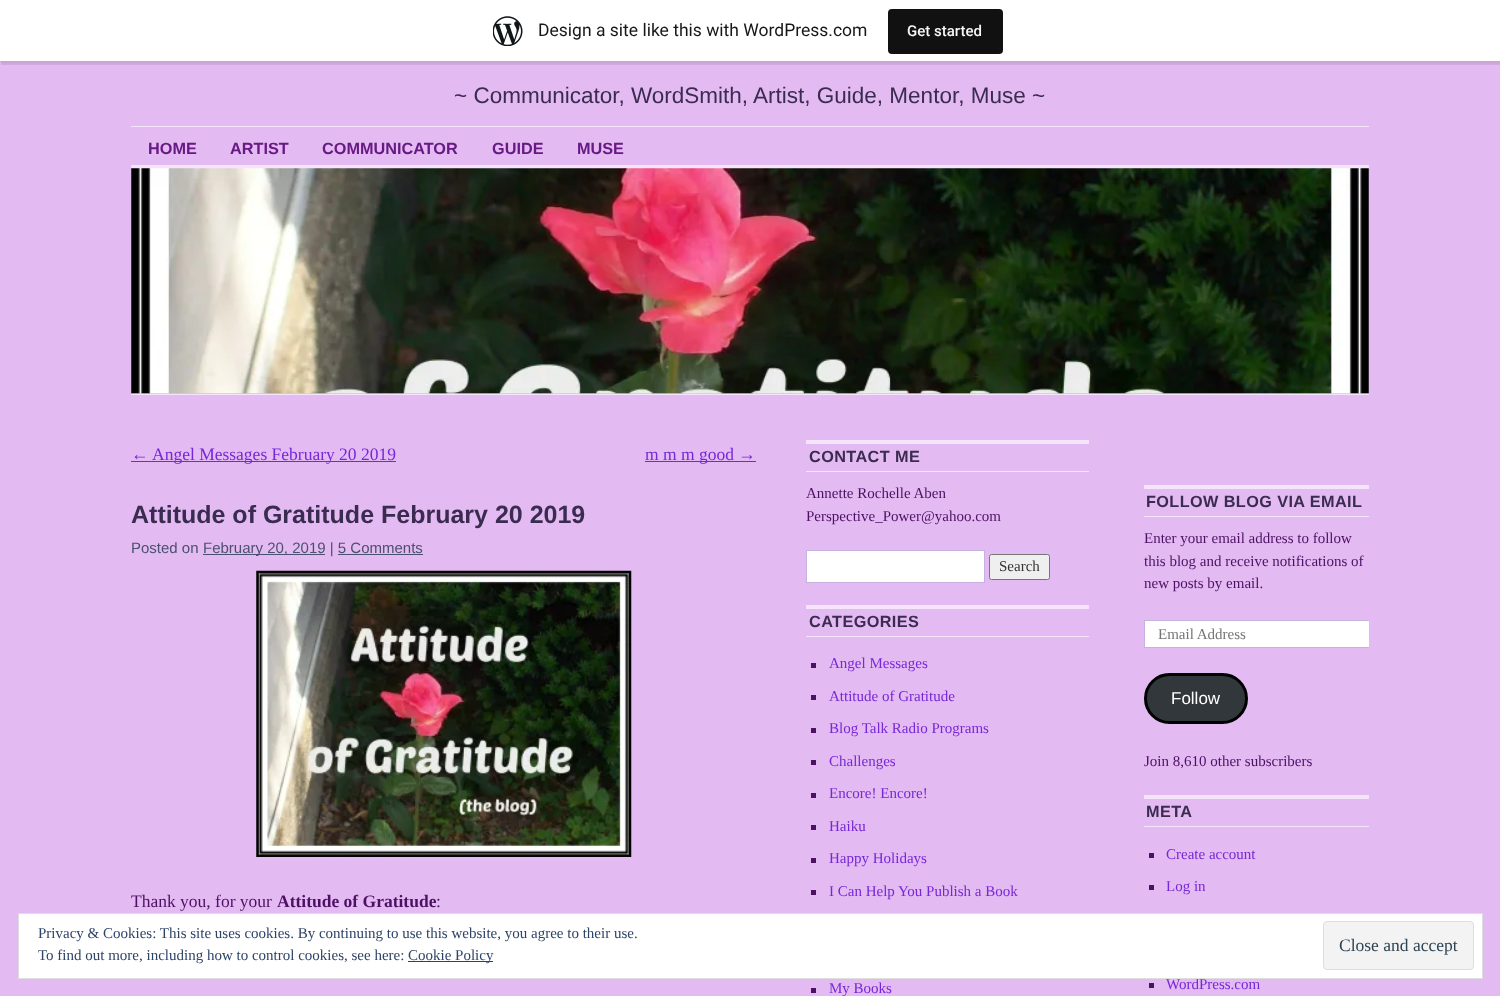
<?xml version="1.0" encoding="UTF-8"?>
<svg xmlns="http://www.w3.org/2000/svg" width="1500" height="996">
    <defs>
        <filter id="blur1" x="-50%" y="-200%" width="200%" height="500%"><feGaussianBlur stdDeviation="1"/></filter>
        <clipPath id="clip1"><rect x="1144" y="440" width="225" height="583"/></clipPath>
    </defs>
    <rect width="100%" height="100%" fill="#E4BAF2"/>
    <rect x="0" y="1" width="1500" height="62" fill="#000000" fill-opacity="0.05" filter="url(#blur1)"/>
    <path d="M 1 61 V 65 H 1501 V 4 H 1500 V 61 Z" fill="#000000" fill-opacity="0.08"/>
    <rect x="0" y="0" width="1500" height="61" fill="#FFFFFF"/>
    <image x="493" y="16" width="30" height="30" href="img_01.png"/>
    <text x="538" y="36" font-family="Roboto" font-size="17.5" fill="#171717">Design a site like this with WordPress.com</text>
    <rect x="888" y="9" width="115" height="45" rx="4" fill="#111111"/>
    <text x="907" y="36" font-family="Roboto" font-size="15" font-weight="500" fill="#F6F7F7">Get started</text>
    <text x="454" y="103" font-family="Liberation Sans" font-size="22.5" fill="#3A2C50">~ Communicator, WordSmith, Artist, Guide, Mentor, Muse ~</text>
    <rect x="131" y="126" width="1238" height="1" fill="#F4E5FA"/>
    <text x="148" y="154" font-family="Liberation Sans" font-size="16.25" font-weight="700" fill="#671A84">HOME</text>
    <text x="230" y="154" font-family="Liberation Sans" font-size="16.25" font-weight="700" fill="#671A84">ARTIST</text>
    <text x="322" y="154" font-family="Liberation Sans" font-size="16.25" font-weight="700" fill="#671A84">COMMUNICATOR</text>
    <text x="492" y="154" font-family="Liberation Sans" font-size="16.25" font-weight="700" fill="#671A84">GUIDE</text>
    <text x="577" y="154" font-family="Liberation Sans" font-size="16.25" font-weight="700" fill="#671A84">MUSE</text>
    <rect x="131" y="165" width="1238" height="4" fill="#F4E5FA"/>
    <image x="131" y="168" width="1238" height="226" href="img_02.png"/>
    <rect x="131" y="394" width="1238" height="1" fill="#F4E5FA"/>
    <text x="131" y="460" font-family="Liberation Serif" font-size="17.5" fill="#7728D6">←</text>
    <rect x="131" y="461" width="265" height="1" fill="#7728D6"/>
    <text x="152" y="460" font-family="Liberation Serif" font-size="17.5" fill="#7728D6">Angel Messages February 20 2019</text>
    <rect x="645" y="461" width="111" height="1" fill="#7728D6"/>
    <text x="645" y="460" font-family="Liberation Serif" font-size="17.5" fill="#7728D6">m m m good →</text>
    <text x="131" y="523" font-family="Liberation Sans" font-size="25" font-weight="700" fill="#3A2C50">Attitude of Gratitude February 20 2019</text>
    <text x="131" y="553" font-family="Liberation Sans" font-size="15" fill="#4B5071">Posted on</text>
    <rect x="203" y="554" width="122" height="1" fill="#4B5071"/>
    <text x="203" y="553" font-family="Liberation Sans" font-size="15" fill="#4B5071">February 20, 2019 | 5 Comments</text>
    <rect x="338" y="554" width="85" height="1" fill="#4B5071"/>
    <image x="256" y="570" width="376" height="287" href="img_03.png"/>
    <text x="131" y="907" font-family="Liberation Serif" font-size="17.5" fill="#4C1163">Thank you, for your</text>
    <text x="277" y="907" font-family="Liberation Serif" font-size="17.5" font-weight="700" fill="#4C1163">Attitude of Gratitude</text>
    <text x="436" y="907" font-family="Liberation Serif" font-size="17.5" fill="#4C1163">:</text>
    <rect x="806" y="440" width="283" height="4" fill="#F4E5FA"/>
    <rect x="806" y="471" width="283" height="1" fill="#F4E5FA"/>
    <text x="809" y="462" font-family="Liberation Sans" font-size="16.25" font-weight="700" letter-spacing="0.4" fill="#3A2C50">CONTACT ME</text>
    <text font-family="Liberation Serif" font-size="15" fill="#4C1163">
        <tspan x="806" y="498">Annette Rochelle Aben</tspan>
        <tspan x="806" y="521">Perspective_Power@yahoo.com</tspan>
    </text>
    <rect x="806.5" y="550.5" width="178" height="32" fill="#FFFFFF" stroke="#C5B2DE"/>
    <rect x="989.5" y="554.5" width="60" height="25" rx="2" fill="#EFEFEF" stroke="#767676"/>
    <text x="999" y="571" font-family="Liberation Serif" font-size="15" fill="#333333">Search</text>
    <rect x="806" y="605" width="283" height="4" fill="#F4E5FA"/>
    <rect x="806" y="636" width="283" height="1" fill="#F4E5FA"/>
    <text x="809" y="627" font-family="Liberation Sans" font-size="16.25" font-weight="700" letter-spacing="0.4" fill="#3A2C50">CATEGORIES</text>
    <rect x="811" y="663" width="5" height="5" fill="#4C1163"/>
    <text x="829" y="668" font-family="Liberation Serif" font-size="15" fill="#7728D6">Angel Messages</text>
    <rect x="811" y="695" width="5" height="5" fill="#4C1163"/>
    <text x="829" y="701" font-family="Liberation Serif" font-size="15" fill="#7728D6">Attitude of Gratitude</text>
    <rect x="811" y="728" width="5" height="5" fill="#4C1163"/>
    <text x="829" y="733" font-family="Liberation Serif" font-size="15" fill="#7728D6">Blog Talk Radio Programs</text>
    <rect x="811" y="760" width="5" height="5" fill="#4C1163"/>
    <text x="829" y="766" font-family="Liberation Serif" font-size="15" fill="#7728D6">Challenges</text>
    <rect x="811" y="793" width="5" height="5" fill="#4C1163"/>
    <text x="829" y="798" font-family="Liberation Serif" font-size="15" fill="#7728D6">Encore! Encore!</text>
    <rect x="811" y="825" width="5" height="5" fill="#4C1163"/>
    <text x="829" y="831" font-family="Liberation Serif" font-size="15" fill="#7728D6">Haiku</text>
    <rect x="811" y="858" width="5" height="5" fill="#4C1163"/>
    <text x="829" y="863" font-family="Liberation Serif" font-size="15" fill="#7728D6">Happy Holidays</text>
    <rect x="811" y="890" width="5" height="5" fill="#4C1163"/>
    <text x="829" y="896" font-family="Liberation Serif" font-size="15" fill="#7728D6">I Can Help You Publish a Book</text>
    <rect x="811" y="988" width="5" height="5" fill="#4C1163"/>
    <text x="829" y="993" font-family="Liberation Serif" font-size="15" fill="#7728D6">My Books</text>
    <rect x="1144" y="485" width="225" height="4" fill="#F4E5FA"/>
    <rect x="1144" y="516" width="225" height="1" fill="#F4E5FA"/>
    <text x="1146" y="507" font-family="Liberation Sans" font-size="16.25" font-weight="700" letter-spacing="0.4" fill="#3A2C50">FOLLOW BLOG VIA EMAIL</text>
    <text font-family="Liberation Serif" font-size="15" fill="#4C1163">
        <tspan x="1144" y="543">Enter your email address to follow</tspan>
        <tspan x="1144" y="566">this blog and receive notifications of</tspan>
        <tspan x="1144" y="588">new posts by email.</tspan>
    </text>
    <rect x="1145" y="621" width="224" height="26" fill="#FFFFFF"/>
    <g clip-path="url(#clip1)">
        <rect x="1144.5" y="620.5" width="240" height="27" fill="none" stroke="#C5B2DE"/>
    </g>
    <text x="1158" y="639" font-family="Liberation Serif" font-size="15" fill="#757575">Email Address</text>
    <rect x="1145.5" y="674.5" width="101" height="48" rx="24" fill="#32373C" stroke="#000000" stroke-width="3"/>
    <text x="1171" y="704" font-family="Liberation Sans" font-size="17" fill="#FFFFFF">Follow</text>
    <text x="1144" y="766" font-family="Liberation Serif" font-size="15" fill="#4C1163">Join 8,610 other subscribers</text>
    <rect x="1144" y="795" width="225" height="4" fill="#F4E5FA"/>
    <rect x="1144" y="826" width="225" height="1" fill="#F4E5FA"/>
    <text x="1146" y="817" font-family="Liberation Sans" font-size="16.25" font-weight="700" letter-spacing="0.4" fill="#3A2C50">META</text>
    <rect x="1149" y="853" width="5" height="5" fill="#4C1163"/>
    <text x="1166" y="859" font-family="Liberation Serif" font-size="15" fill="#7728D6">Create account</text>
    <rect x="1149" y="885" width="5" height="5" fill="#4C1163"/>
    <text x="1166" y="891" font-family="Liberation Serif" font-size="15" fill="#7728D6">Log in</text>
    <rect x="1149" y="983" width="5" height="5" fill="#4C1163"/>
    <text x="1166" y="989" font-family="Liberation Serif" font-size="15" fill="#7728D6">WordPress.com</text>
    <rect x="18.5" y="913.5" width="1464" height="65" fill="#FFFFFF" stroke="#DEDEDE"/>
    <text x="38" y="938" font-family="Liberation Serif" font-size="15" fill="#2E4467">Privacy &amp; Cookies: This site uses cookies. By continuing to use this website, you agree to their use.</text>
    <rect x="1323.5" y="921.5" width="150" height="48" rx="3.5" fill="#F3F3F3" stroke="#DEDEDE"/>
    <text x="1339" y="951" font-family="Liberation Serif" font-size="17.5" fill="#2E4453">Close and accept</text>
    <text x="38" y="960" font-family="Liberation Serif" font-size="15" fill="#2E4467">To find out more, including how to control cookies, see here:</text>
    <rect x="408" y="961" width="85" height="1" fill="#2E4467"/>
    <text x="408" y="960" font-family="Liberation Serif" font-size="15" fill="#2E4467">Cookie Policy</text>
</svg>
